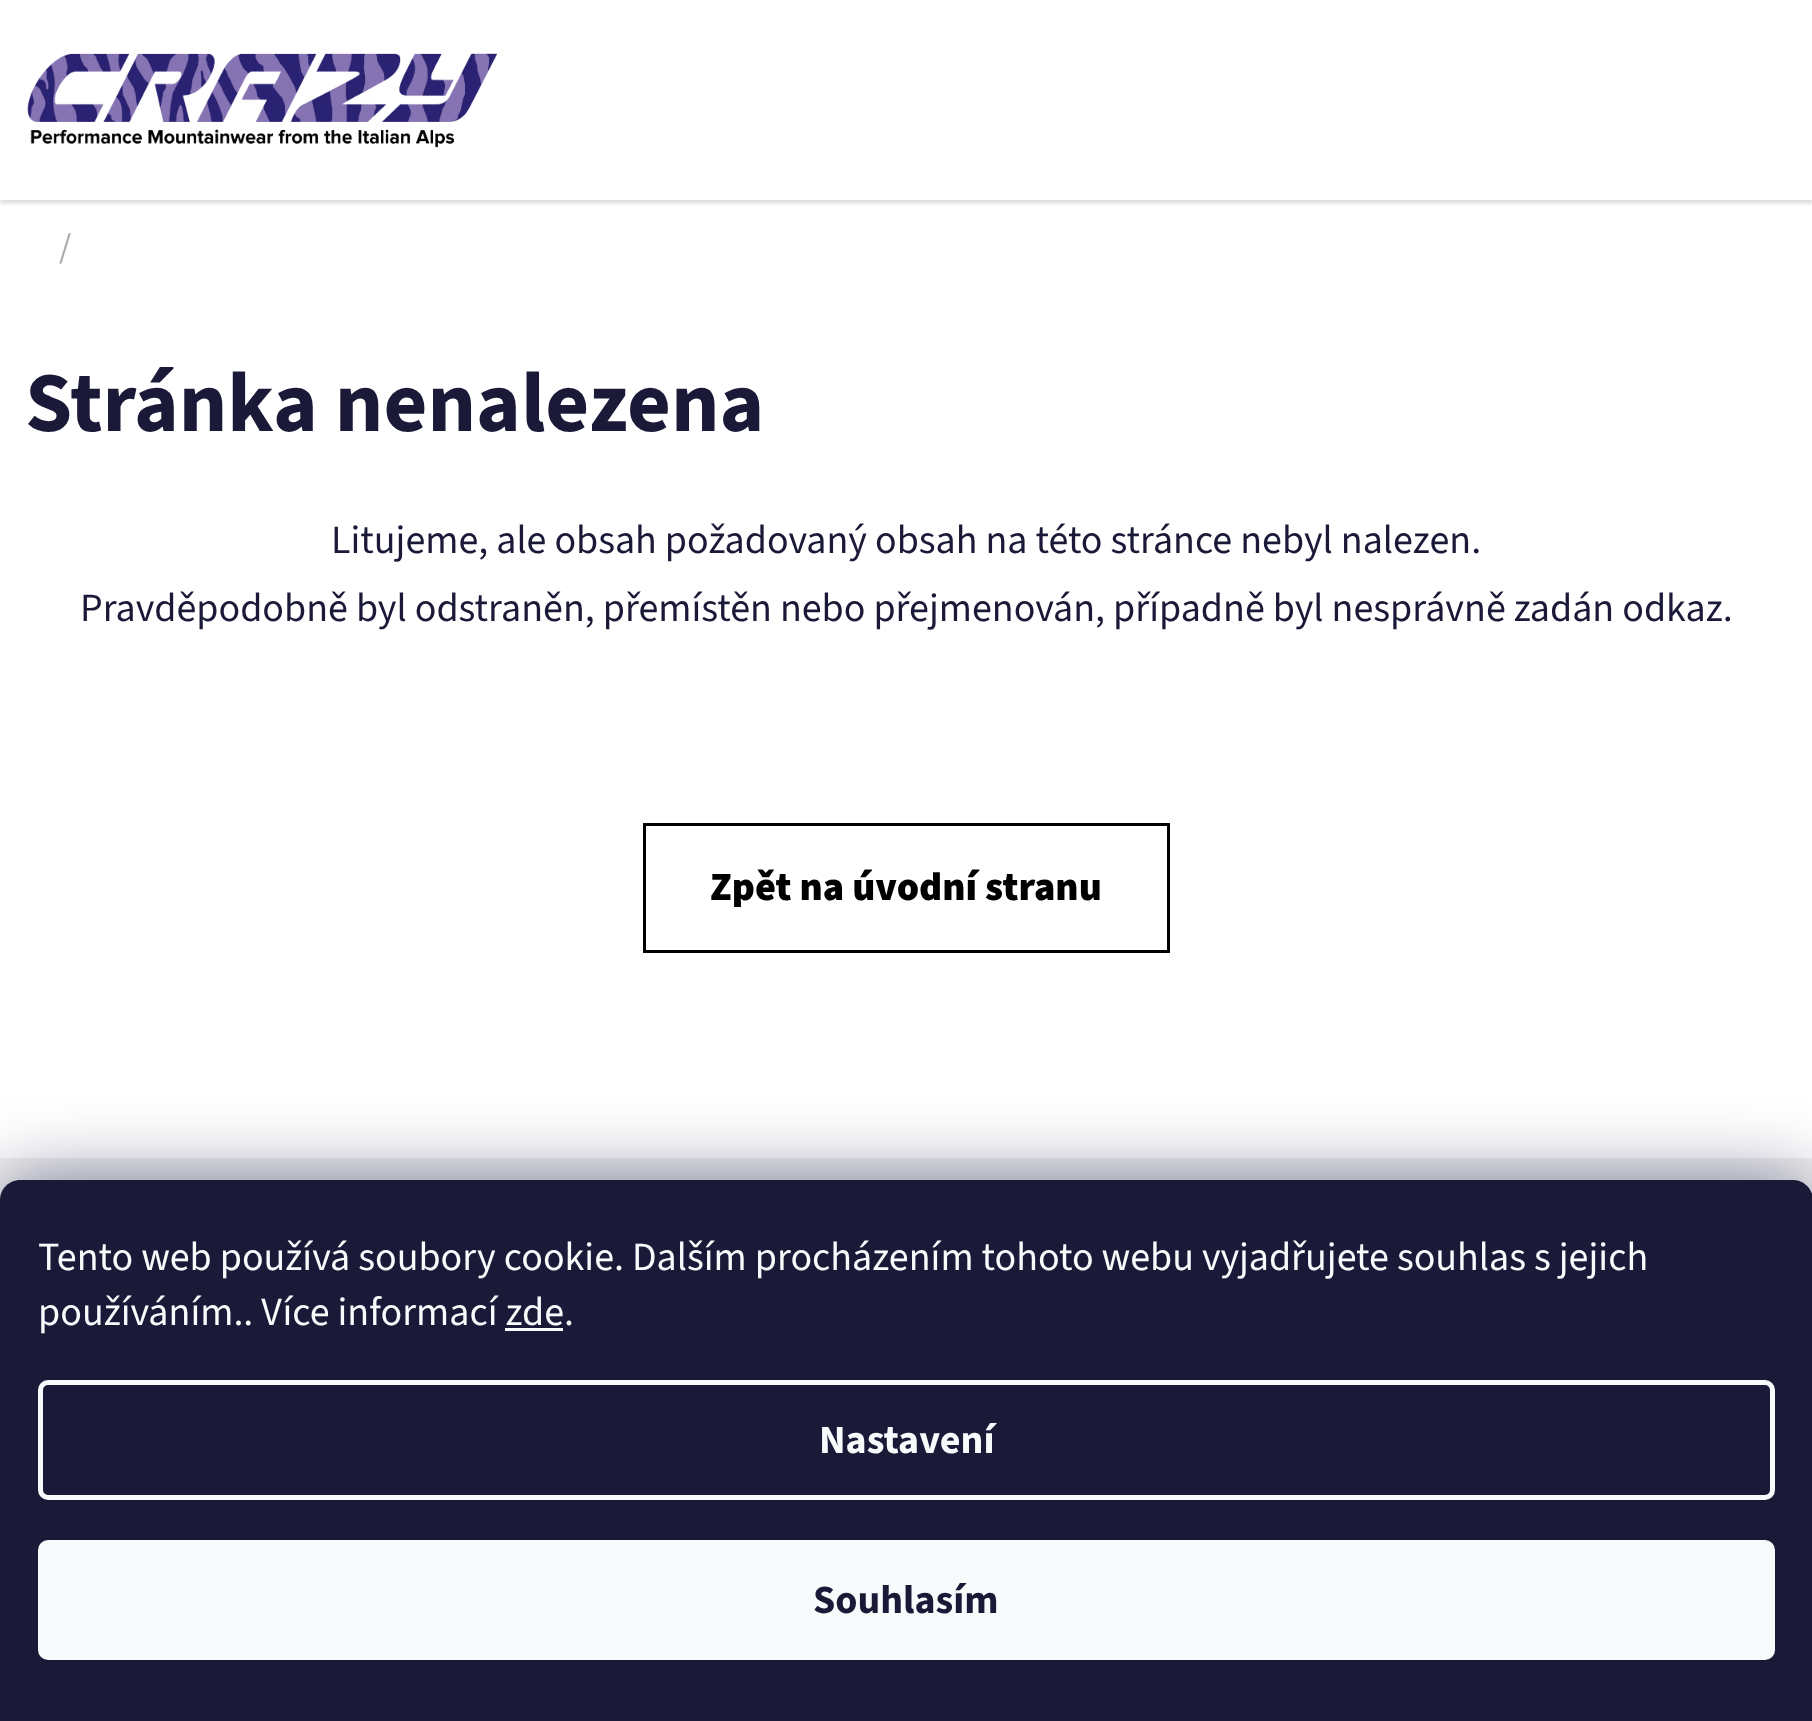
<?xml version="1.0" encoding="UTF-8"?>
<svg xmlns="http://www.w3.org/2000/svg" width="1812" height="1721">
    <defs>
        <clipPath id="clip1"><rect x="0" y="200" width="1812" height="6"/></clipPath>
        <filter id="blur1" x="-50%" y="-200%" width="200%" height="500%"><feGaussianBlur stdDeviation="2.5"/></filter>
        <filter id="blur2" x="-50%" y="-200%" width="200%" height="500%"><feGaussianBlur stdDeviation="37.5"/></filter>
    </defs>
    <rect width="100%" height="100%" fill="#FFFFFF"/>
    <g clip-path="url(#clip1)">
        <rect x="0" y="3" width="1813" height="200" fill="#000000" fill-opacity="0.16" filter="url(#blur1)"/>
    </g>
    <image x="27" y="53" width="470" height="95" href="img_01.png"/>
    <text x="59" y="258" font-family="'Source Sans 3'" font-size="35" fill="#AAAAAA">/</text>
    <text x="25" y="431" font-family="'Source Sans 3'" font-size="85" font-weight="700" fill="#1A1937">Stránka nenalezena</text>
    <text x="331" y="553" font-family="'Source Sans 3'" font-size="40" fill="#1A1937">Litujeme, ale obsah požadovaný obsah na této stránce nebyl nalezen.</text>
    <text x="80" y="621" font-family="'Source Sans 3'" font-size="40" fill="#1A1937">Pravděpodobně byl odstraněn, přemístěn nebo přejmenován, případně byl nesprávně zadán odkaz.</text>
    <rect x="644.5" y="824.5" width="524" height="127" fill="none" stroke="#000000" stroke-width="3"/>
    <text x="710" y="900" font-family="'Source Sans 3'" font-size="40" font-weight="900" fill="#000000">Zpět na úvodní stranu</text>
    <rect x="0" y="1158" width="1812" height="42" fill="#F1F1F1"/>
    <rect x="0" y="1180" width="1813" height="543" rx="20" fill="#1B1939" fill-opacity="0.5" filter="url(#blur2)"/>
    <path d="M 20 1180 H 1793 C 1804 1180 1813 1189 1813 1200 V 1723 H 0 V 1200 C 0 1189 9 1180 20 1180 Z" fill="#1A1937"/>
    <text font-family="'Source Sans 3'" font-size="40" fill="#F8FAFB">
        <tspan x="38" y="1270">Tento web používá soubory cookie. Dalším procházením tohoto webu vyjadřujete souhlas s jejich</tspan>
        <tspan x="38" y="1325">používáním.. Více informací zde.</tspan>
    </text>
    <rect x="505" y="1328" width="58" height="3" fill="#F8FAFB"/>
    <rect x="40.5" y="1382.5" width="1732" height="115" rx="7.5" fill="none" stroke="#F8FAFB" stroke-width="5"/>
    <text x="819" y="1453" font-family="'Source Sans 3'" font-size="40" font-weight="700" fill="#F8FAFB">Nastavení</text>
    <rect x="38" y="1540" width="1737" height="120" rx="10" fill="#F8FAFB"/>
    <text x="813" y="1613" font-family="'Source Sans 3'" font-size="40" font-weight="700" fill="#1A1937">Souhlasím</text>
</svg>
